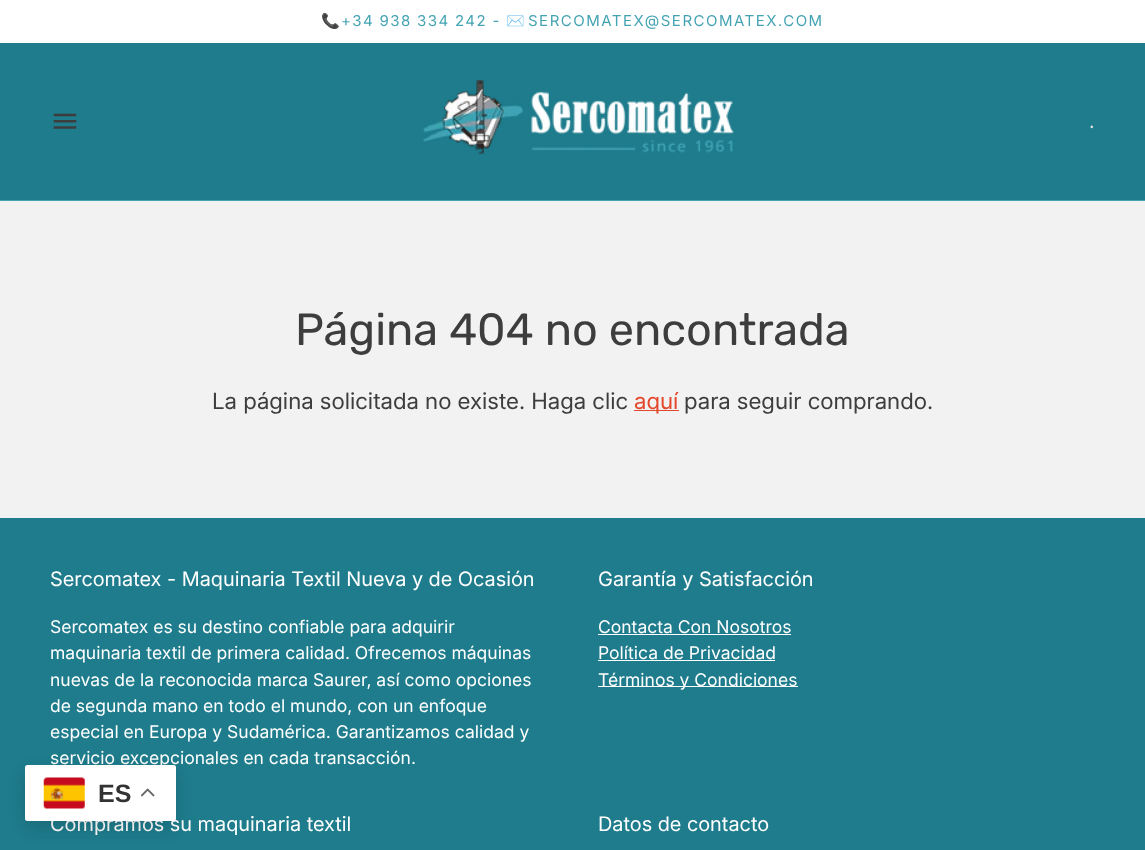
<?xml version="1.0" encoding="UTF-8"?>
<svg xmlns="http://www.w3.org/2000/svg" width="1145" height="850">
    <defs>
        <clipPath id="clip1"><rect x="296" y="13" width="553" height="17"/></clipPath>
        <filter id="blur1" x="-50%" y="-200%" width="200%" height="500%"><feGaussianBlur stdDeviation="9.5"/></filter>
    </defs>
    <rect width="100%" height="100%" fill="#F2F2F2"/>
    <rect x="0" y="0" width="1145" height="43" fill="#FFFFFF"/>
    <g clip-path="url(#clip1)">
        <text x="321" y="26" font-family="Noto Color Emoji" font-size="15" letter-spacing="1.5" fill="#44A3B3">📞</text>
    </g>
    <text x="341" y="26" word-spacing="-0.5" font-family="'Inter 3'" font-size="15" letter-spacing="1.5" fill="#44A3B3">+34 938 334 242 -</text>
    <g clip-path="url(#clip1)">
        <text x="506" y="26" font-family="Noto Color Emoji" font-size="15" letter-spacing="1.5" fill="#44A3B3">✉️</text>
    </g>
    <text x="528" y="26" font-family="'Inter 3'" font-size="15" letter-spacing="1.5" fill="#44A3B3">SERCOMATEX@SERCOMATEX.COM</text>
    <rect x="0" y="43" width="1145" height="157" fill="#1E7C8C"/>
    <rect x="0" y="200" width="1145" height="1" fill="#44A3B3"/>
    <image x="53" y="113" width="24" height="16" href="img_01.png"/>
    <image x="423" y="79" width="311" height="75" href="img_02.png"/>
    <text x="1089" y="128" font-family="'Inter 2'" font-size="20" fill="#E2E2E2">.</text>
    <text x="295" y="345" font-family="Rubik" font-size="45" fill="#3D3D3D">Página 404 no encontrada</text>
    <text x="212" y="409" font-family="Inter" font-size="22.5" fill="#3D3D3D">La página solicitada no existe. Haga clic</text>
    <rect x="634" y="410" width="45" height="1" fill="#E3472C"/>
    <text x="634" y="409" font-family="Inter" font-size="22.5" fill="#E3472C">aquí</text>
    <text x="684" y="409" font-family="Inter" font-size="22.5" fill="#3D3D3D">para seguir comprando.</text>
    <rect x="0" y="518" width="1145" height="332" fill="#1E7C8C"/>
    <text x="50" y="586" font-family="'Inter 2'" font-size="20" fill="#FFFFFF">Sercomatex - Maquinaria Textil Nueva y de Ocasión</text>
    <text font-family="'Inter 3'" font-size="17.5" fill="#FFFFFF">
        <tspan x="50" y="633">Sercomatex es su destino confiable para adquirir</tspan>
        <tspan x="50" y="659">maquinaria textil de primera calidad. Ofrecemos máquinas</tspan>
        <tspan x="50" y="686">nuevas de la reconocida marca Saurer, así como opciones</tspan>
        <tspan x="50" y="712">de segunda mano en todo el mundo, con un enfoque</tspan>
        <tspan x="50" y="738">especial en Europa y Sudamérica. Garantizamos calidad y</tspan>
        <tspan x="50" y="764">servicio excepcionales en cada transacción.</tspan>
    </text>
    <text x="598" y="586" font-family="'Inter 2'" font-size="20" fill="#FFFFFF">Garantía y Satisfacción</text>
    <text x="598" y="633" font-family="'Inter 3'" font-size="17.5" fill="#FFFFFF">Contacta Con Nosotros</text>
    <rect x="598" y="634" width="193" height="1" fill="#FFFFFF"/>
    <text x="598" y="659" font-family="'Inter 3'" font-size="17.5" fill="#FFFFFF">Política de Privacidad</text>
    <rect x="598" y="660" width="177" height="1" fill="#FFFFFF"/>
    <rect x="598" y="686" width="200" height="1" fill="#FFFFFF"/>
    <text x="598" y="686" font-family="'Inter 3'" font-size="17.5" fill="#FFFFFF">Términos y Condiciones</text>
    <text x="50" y="831" font-family="'Inter 2'" font-size="20" fill="#FFFFFF">Compramos su maquinaria textil</text>
    <text x="598" y="831" font-family="'Inter 2'" font-size="20" fill="#FFFFFF">Datos de contacto</text>
    <rect x="25" y="771" width="151" height="57" rx="2.5" fill="#000000" fill-opacity="0.15" filter="url(#blur1)"/>
    <rect x="25" y="765" width="151" height="56" rx="2.5" fill="#FFFFFF"/>
    <image x="43" y="777" width="42" height="32" href="img_03.png"/>
    <text x="98" y="802" font-family="Liberation Sans" font-size="25" font-weight="700" fill="#333333">ES</text>
    <image x="141" y="788" width="14" height="9" href="img_04.png"/>
</svg>
